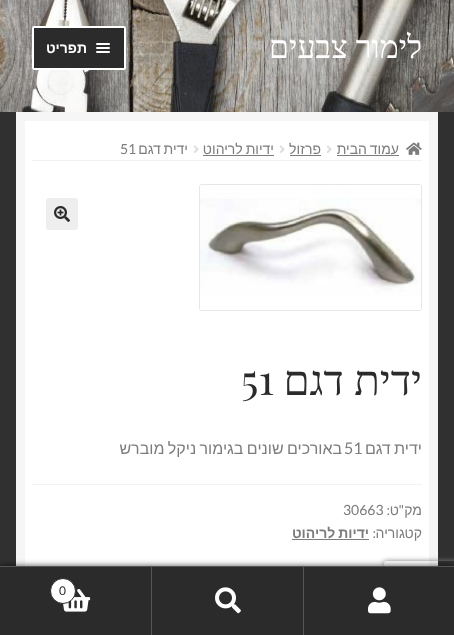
<?xml version="1.0" encoding="UTF-8"?>
<svg xmlns="http://www.w3.org/2000/svg" width="454" height="635">
    <defs>
        <filter id="blur1" x="-50%" y="-200%" width="200%" height="500%"><feGaussianBlur stdDeviation="3"/></filter>
        <clipPath id="clip1"><path d="M 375 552 H 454 V 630 H 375 Z M 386 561 H 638 C 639 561 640 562 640 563 V 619 C 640 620 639 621 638 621 H 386 C 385 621 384 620 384 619 V 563 C 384 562 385 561 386 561 Z" clip-rule="evenodd"/></clipPath>
        <filter id="blur2" x="-50%" y="-200%" width="200%" height="500%"><feGaussianBlur stdDeviation="2.5"/></filter>
    </defs>
    <rect width="100%" height="100%" fill="#303030"/>
    <image x="0" y="0" width="454" height="112" href="img_01.png"/>
    <text x="422" y="58" font-family="Liberation Serif" font-size="32" direction="rtl" fill="#FFFFFF">לימור צבעים</text>
    <rect x="33" y="27" width="92" height="42" rx="1" fill="#2B2B2B" stroke="#FFFFFF" stroke-width="2"/>
    <rect x="96" y="43" width="14" height="2" rx="1" fill="#FFFFFF"/>
    <rect x="96" y="47" width="14" height="2" rx="1" fill="#FFFFFF"/>
    <text x="87" y="53" font-family="Liberation Sans" font-size="14" font-weight="700" direction="rtl" fill="#FFFFFF">תפריט</text>
    <rect x="96" y="51" width="14" height="2" rx="1" fill="#FFFFFF"/>
    <rect x="25" y="121" width="404" height="445" fill="#FFFFFF"/>
    <rect x="20.5" y="116.5" width="413" height="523" fill="none" stroke="#F6F6F6" stroke-width="9"/>
    <rect x="32" y="160" width="390" height="1" fill="#F2F2F2"/>
    <image x="406" y="142" width="16" height="13" href="img_02.png"/>
    <text x="399" y="154" word-spacing="-1" font-family="Liberation Sans" font-size="14" direction="rtl" fill="#7C7C7C">עמוד הבית</text>
    <rect x="337" y="155" width="62" height="1" fill="#7C7C7C"/>
    <image x="326" y="145" width="6" height="8" href="img_03.png"/>
    <text x="321" y="154" font-family="Liberation Sans" font-size="14" direction="rtl" fill="#7C7C7C">פרזול</text>
    <rect x="290" y="155" width="31" height="1" fill="#7C7C7C"/>
    <image x="279" y="145" width="6" height="8" href="img_03.png"/>
    <text x="274" y="154" word-spacing="-1" font-family="Liberation Sans" font-size="14" direction="rtl" fill="#7C7C7C">ידיות לריהוט</text>
    <rect x="203" y="155" width="71" height="1" fill="#7C7C7C"/>
    <image x="193" y="145" width="6" height="8" href="img_03.png"/>
    <text x="188" y="154" word-spacing="-1" font-family="Liberation Sans" font-size="14" direction="rtl" fill="#7C7C7C">ידית דגם</text>
    <text x="120" y="154" font-family="Lato" font-size="14" fill="#7C7C7C">51</text>
    <rect x="199.5" y="184.5" width="222" height="126" rx="2.5" fill="none" stroke="#E6E6E6"/>
    <image x="200" y="185" width="221" height="125" href="img_04.png"/>
    <rect x="46" y="198" width="32" height="32" rx="3" fill="#EEEEEE"/>
    <image x="54" y="206" width="16" height="16" href="img_05.png"/>
    <text x="422" y="395" font-family="Liberation Serif" font-size="42" direction="rtl" fill="#2B2B2B">ידית דגם</text>
    <text x="241" y="395" font-family="Playfair Display" font-size="42" fill="#2B2B2B">51</text>
    <text x="422" y="454" word-spacing="-1" font-family="Liberation Sans" font-size="16" direction="rtl" fill="#7C7C7C">ידית דגם</text>
    <text x="344" y="454" font-family="Lato" font-size="16" fill="#7C7C7C">51</text>
    <text x="342" y="454" word-spacing="-1" font-family="Liberation Sans" font-size="16" direction="rtl" fill="#7C7C7C">באורכים שונים בגימור ניקל מוברש</text>
    <rect x="32" y="484" width="390" height="1" fill="#F2F2F2"/>
    <text x="422" y="515" font-family="Liberation Sans" font-size="14" direction="rtl" fill="#7C7C7C">מק</text>
    <text x="404" y="515" font-family="Lato" font-size="14" direction="rtl" fill="#7C7C7C">"</text>
    <text x="399" y="515" font-family="Liberation Sans" font-size="14" direction="rtl" fill="#7C7C7C">ט</text>
    <text x="390" y="515" font-family="Lato" font-size="14" direction="rtl" fill="#7C7C7C">:</text>
    <text x="343" y="515" font-family="Lato" font-size="14" fill="#7C7C7C">30663</text>
    <text x="422" y="538" font-family="Liberation Sans" font-size="14" direction="rtl" fill="#7C7C7C">קטגוריה</text>
    <text x="376" y="538" font-family="Lato" font-size="14" direction="rtl" fill="#7C7C7C">:</text>
    <text x="369" y="538" word-spacing="-1" font-family="Liberation Sans" font-size="14" font-weight="700" direction="rtl" fill="#7C7C7C">ידיות לריהוט</text>
    <rect x="292" y="539" width="77" height="1" fill="#7C7C7C"/>
    <rect x="0" y="566" width="454" height="69" fill="#000000" fill-opacity="0.7" filter="url(#blur1)"/>
    <g clip-path="url(#clip1)">
        <rect x="384" y="561" width="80" height="60" rx="2" fill="#808080" filter="url(#blur2)"/>
    </g>
    <rect x="0" y="566" width="454" height="1" fill="#555555"/>
    <rect x="304" y="567" width="150" height="68" fill="#2B2B2B"/>
    <rect x="303" y="567" width="1" height="68" fill="#555555"/>
    <image x="368" y="587" width="23" height="27" href="img_06.png"/>
    <rect x="152" y="567" width="151" height="68" fill="#2B2B2B"/>
    <rect x="151" y="567" width="1" height="68" fill="#555555"/>
    <image x="215" y="587" width="26" height="27" href="img_07.png"/>
    <rect x="0" y="567" width="151" height="68" fill="#2B2B2B"/>
    <image x="63" y="589" width="28" height="23" href="img_08.png"/>
    <circle cx="63" cy="591" r="12.5" fill="#FFFFFF" stroke="#2B2B2B"/>
    <text x="59" y="595" font-family="Lato" font-size="12" fill="#2B2B2B">0</text>
</svg>
